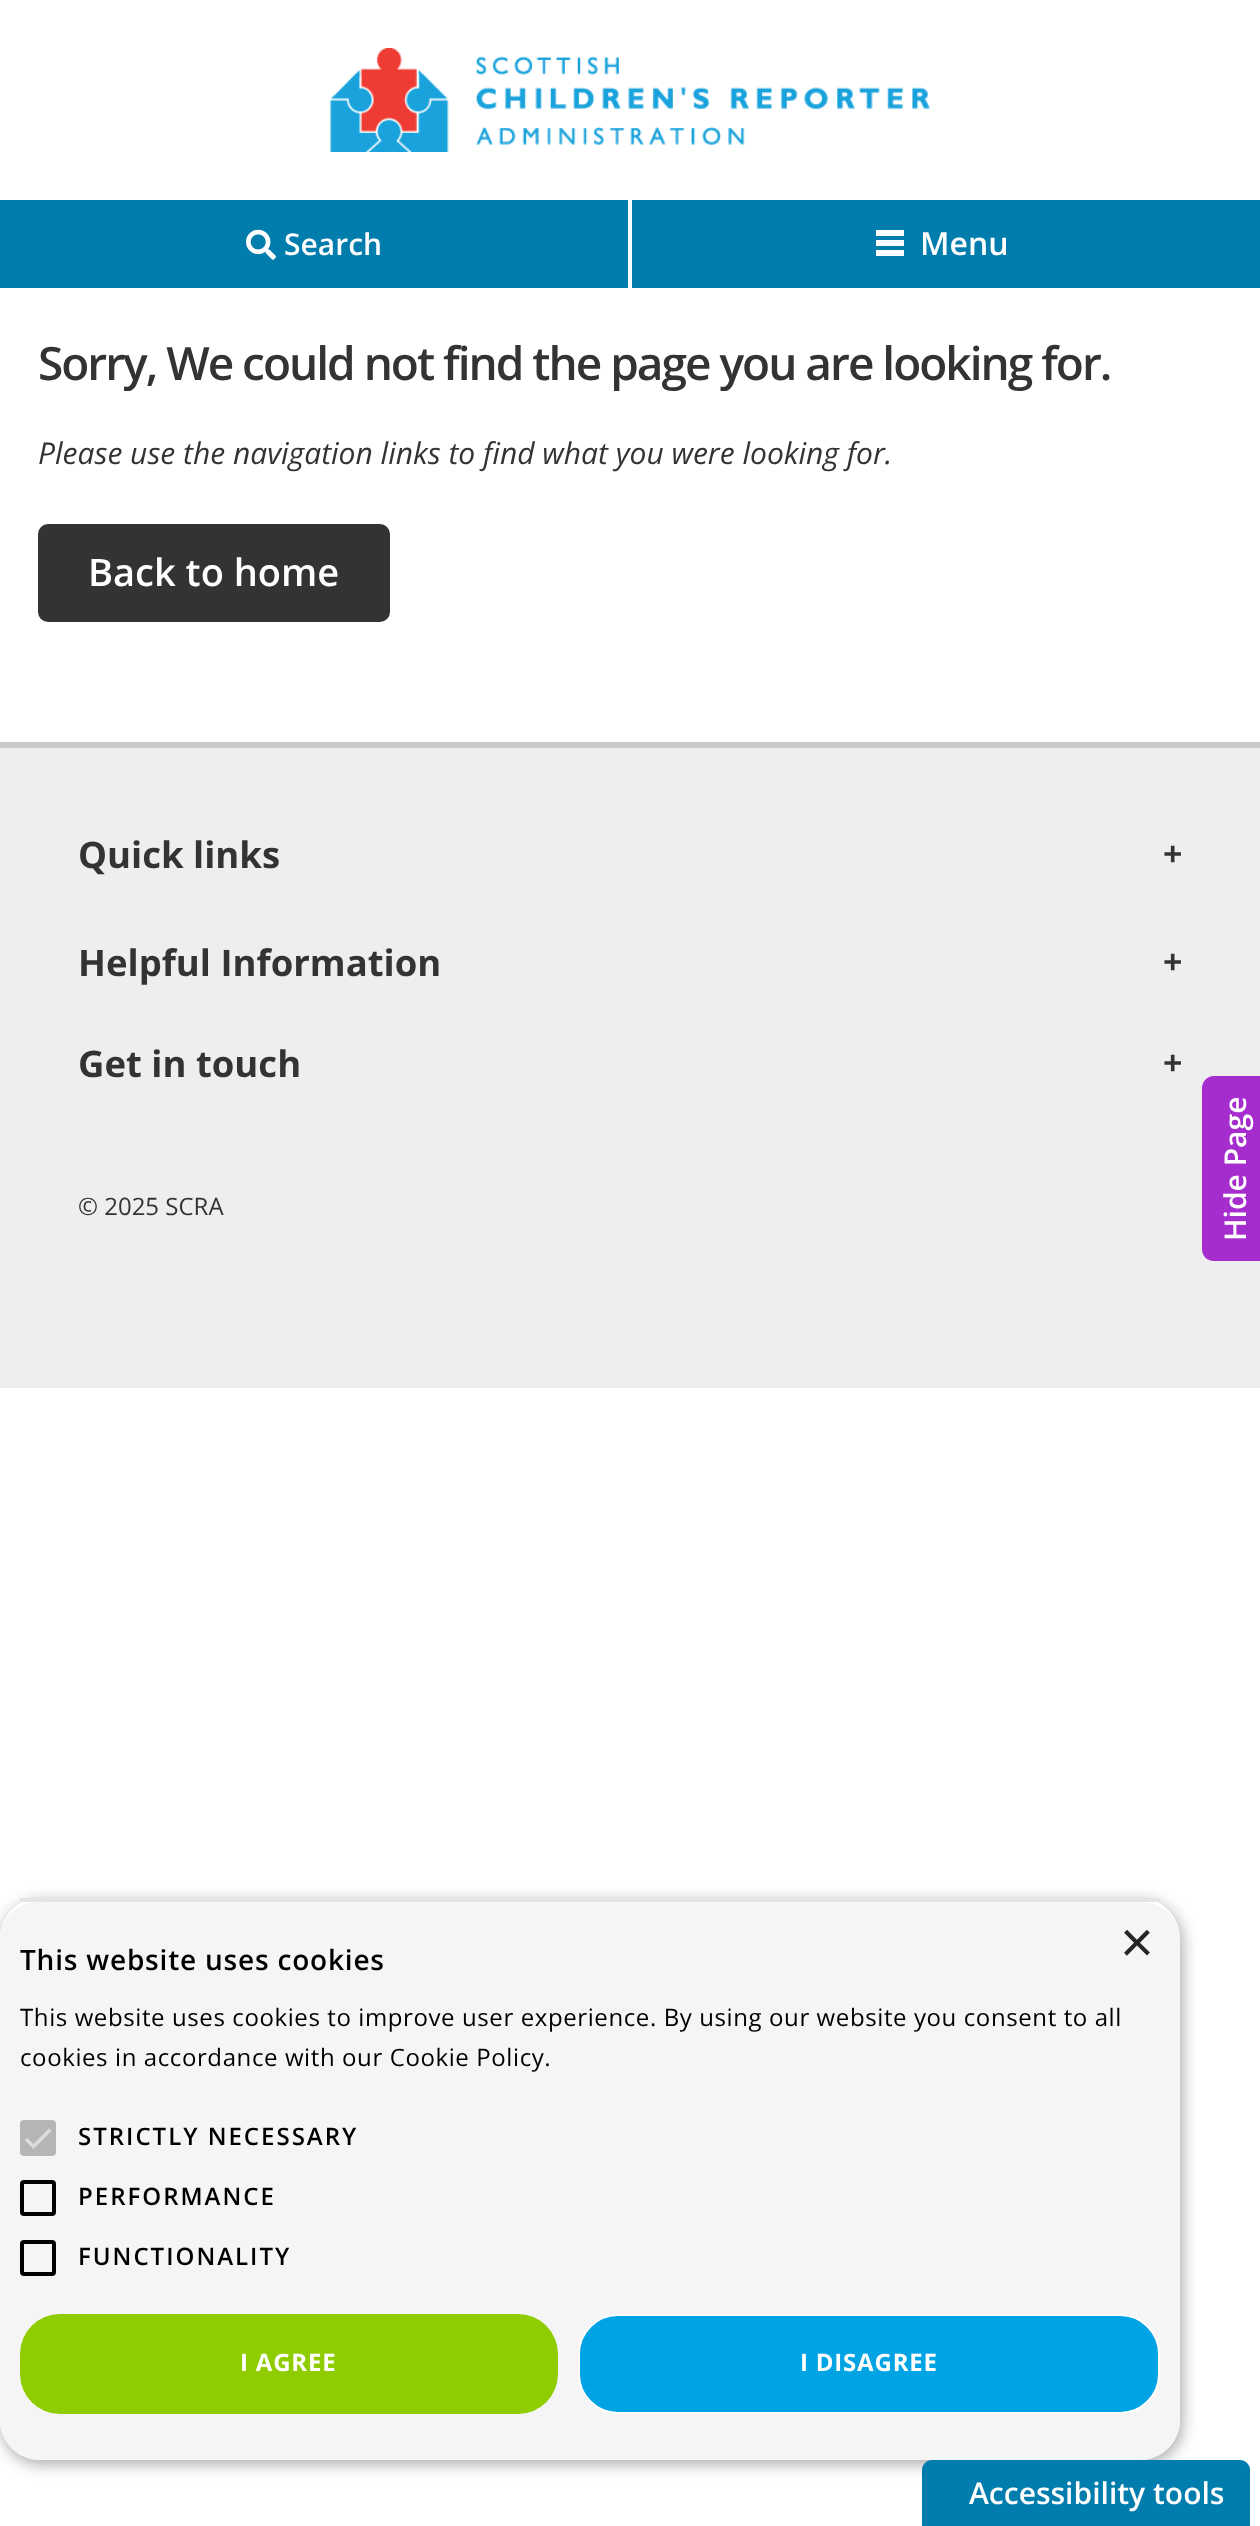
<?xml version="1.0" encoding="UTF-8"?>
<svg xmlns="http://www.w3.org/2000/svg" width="1260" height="2526">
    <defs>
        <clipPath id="clip1"><path d="M 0 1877 H 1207 V 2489 H 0 Z M 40 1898 H 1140 C 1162 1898 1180 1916 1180 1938 V 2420 C 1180 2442 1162 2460 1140 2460 H 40 C 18 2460 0 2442 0 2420 V 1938 C 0 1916 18 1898 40 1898 Z" clip-rule="evenodd"/></clipPath>
        <filter id="blur1" x="-50%" y="-200%" width="200%" height="500%"><feGaussianBlur stdDeviation="8"/></filter>
    </defs>
    <rect width="100%" height="100%" fill="#FFFFFF"/>
    <image x="330" y="48" width="600" height="104" href="img_01.png"/>
    <rect x="0" y="200" width="628" height="88" fill="#007CAD"/>
    <image x="246" y="229" width="30" height="31" href="img_02.png"/>
    <text x="284" y="255" font-family="Open Sans" font-size="30" font-weight="600" fill="#FFFFFF">Search</text>
    <rect x="632" y="200" width="628" height="88" fill="#007CAD"/>
    <rect x="876" y="240" width="28" height="6" fill="#FFFFFF"/>
    <rect x="876" y="230" width="28" height="6" fill="#FFFFFF"/>
    <rect x="876" y="250" width="28" height="6" fill="#FFFFFF"/>
    <text x="920" y="255" font-family="Open Sans" font-size="32" font-weight="600" fill="#FFFFFF">Menu</text>
    <g clip-path="url(#clip1)">
        <rect x="2" y="1902" width="1180" height="562" rx="40" fill="#000000" fill-opacity="0.35" filter="url(#blur1)"/>
    </g>
    <path d="M 932 2460 H 1240 C 1245.5 2460 1250 2464.5 1250 2470 V 2526 H 922 V 2470 C 922 2464.5 926.5 2460 932 2460 Z" fill="#007CAD"/>
    <text x="969" y="2504" font-family="Open Sans" font-size="30" font-weight="600" fill="#FFFFFF">Accessibility tools</text>
    <text x="38" y="380" font-family="Open Sans" font-size="46" font-weight="600" letter-spacing="-2" fill="#333333">Sorry, We could not find the page you are looking for.</text>
    <text x="38" y="464" font-family="Open Sans" font-size="30" font-style="italic" fill="#333333">Please use the navigation links to find what you were looking for.</text>
    <rect x="38" y="524" width="352" height="98" rx="10" fill="#333333"/>
    <text x="88" y="586" font-family="Open Sans" font-size="38" font-weight="600" fill="#FFFFFF">Back to home</text>
    <rect x="0" y="748" width="1260" height="640" fill="#EEEEEE"/>
    <rect x="0" y="742" width="1260" height="6" fill="#C9C9C9"/>
    <text x="78" y="868" font-family="Open Sans" font-size="36.5" font-weight="700" fill="#333333">Quick links</text>
    <text x="1163" y="866" font-family="Open Sans" font-size="34" font-weight="700" fill="#333333">+</text>
    <text x="78" y="976" font-family="Open Sans" font-size="36.5" font-weight="700" fill="#333333">Helpful Information</text>
    <text x="1163" y="974" font-family="Open Sans" font-size="34" font-weight="700" fill="#333333">+</text>
    <text x="78" y="1077" font-family="Open Sans" font-size="36.5" font-weight="700" fill="#333333">Get in touch</text>
    <text x="1163" y="1075" font-family="Open Sans" font-size="34" font-weight="700" fill="#333333">+</text>
    <text x="78" y="1215" font-family="Open Sans" font-size="24" fill="#333333">© 2025 SCRA</text>
    <path d="M 1202 1249 V 1088 C 1202 1082 1207 1076 1214 1076 H 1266 V 1261 H 1214 C 1207 1261 1202 1256 1202 1249 Z" fill="#A52CCD"/>
    <text x="1246" y="1241" transform="rotate(-90 1246 1241)" font-family="Open Sans" font-size="30" font-weight="600" fill="#FFFFFF">Hide Page</text>
    <path d="M 40 1902 H 1140 C 1162 1902 1180 1918 1180 1938 V 2420 C 1180 2442 1162 2460 1140 2460 H 40 C 18 2460 0 2442 0 2420 V 1938 C 0 1918 18 1902 40 1902 Z" fill="#F5F5F5"/>
    <rect x="20" y="1898" width="1140" height="4" fill="#E4E4E4"/>
    <text x="1120" y="1962" font-family="Liberation Sans" font-size="58" fill="#252525">×</text>
    <text x="20" y="1970" font-family="Open Sans" font-size="28" font-weight="600" letter-spacing="0.8" fill="#000000">This website uses cookies</text>
    <text font-family="Open Sans" font-size="24" letter-spacing="0.6" fill="#000000">
        <tspan x="20" y="2026">This website uses cookies to improve user experience. By using our website you consent to all</tspan>
        <tspan x="20" y="2066">cookies in accordance with our Cookie Policy.</tspan>
    </text>
    <rect x="20" y="2120" width="36" height="36" rx="4" fill="#B5B5B5"/>
    <path d="M 26 2139 L 33.5 2146.5 L 50.5 2129.5" fill="none" stroke="#DDDDDD" stroke-width="3.6"/>
    <text x="78" y="2145" font-family="Open Sans" font-size="24" font-weight="600" letter-spacing="2" fill="#000000">STRICTLY NECESSARY</text>
    <rect x="22" y="2182" width="32" height="32" rx="2" fill="none" stroke="#000000" stroke-width="4"/>
    <text x="78" y="2205" font-family="Open Sans" font-size="24" font-weight="600" letter-spacing="2" fill="#000000">PERFORMANCE</text>
    <rect x="22" y="2242" width="32" height="32" rx="2" fill="none" stroke="#000000" stroke-width="4"/>
    <text x="78" y="2265" font-family="Open Sans" font-size="24" font-weight="600" letter-spacing="2" fill="#000000">FUNCTIONALITY</text>
    <rect x="20" y="2314" width="538" height="100" rx="40" fill="#8FCC00"/>
    <text x="240" y="2371" font-family="Open Sans" font-size="24" font-weight="700" letter-spacing="0.8" fill="#FFFFFF">I AGREE</text>
    <rect x="579" y="2315" width="580" height="98" rx="39" fill="#00A3E3" stroke="#FFFFFF" stroke-width="2"/>
    <text x="800" y="2371" font-family="Open Sans" font-size="24" font-weight="700" letter-spacing="0.8" fill="#FFFFFF">I DISAGREE</text>
</svg>
